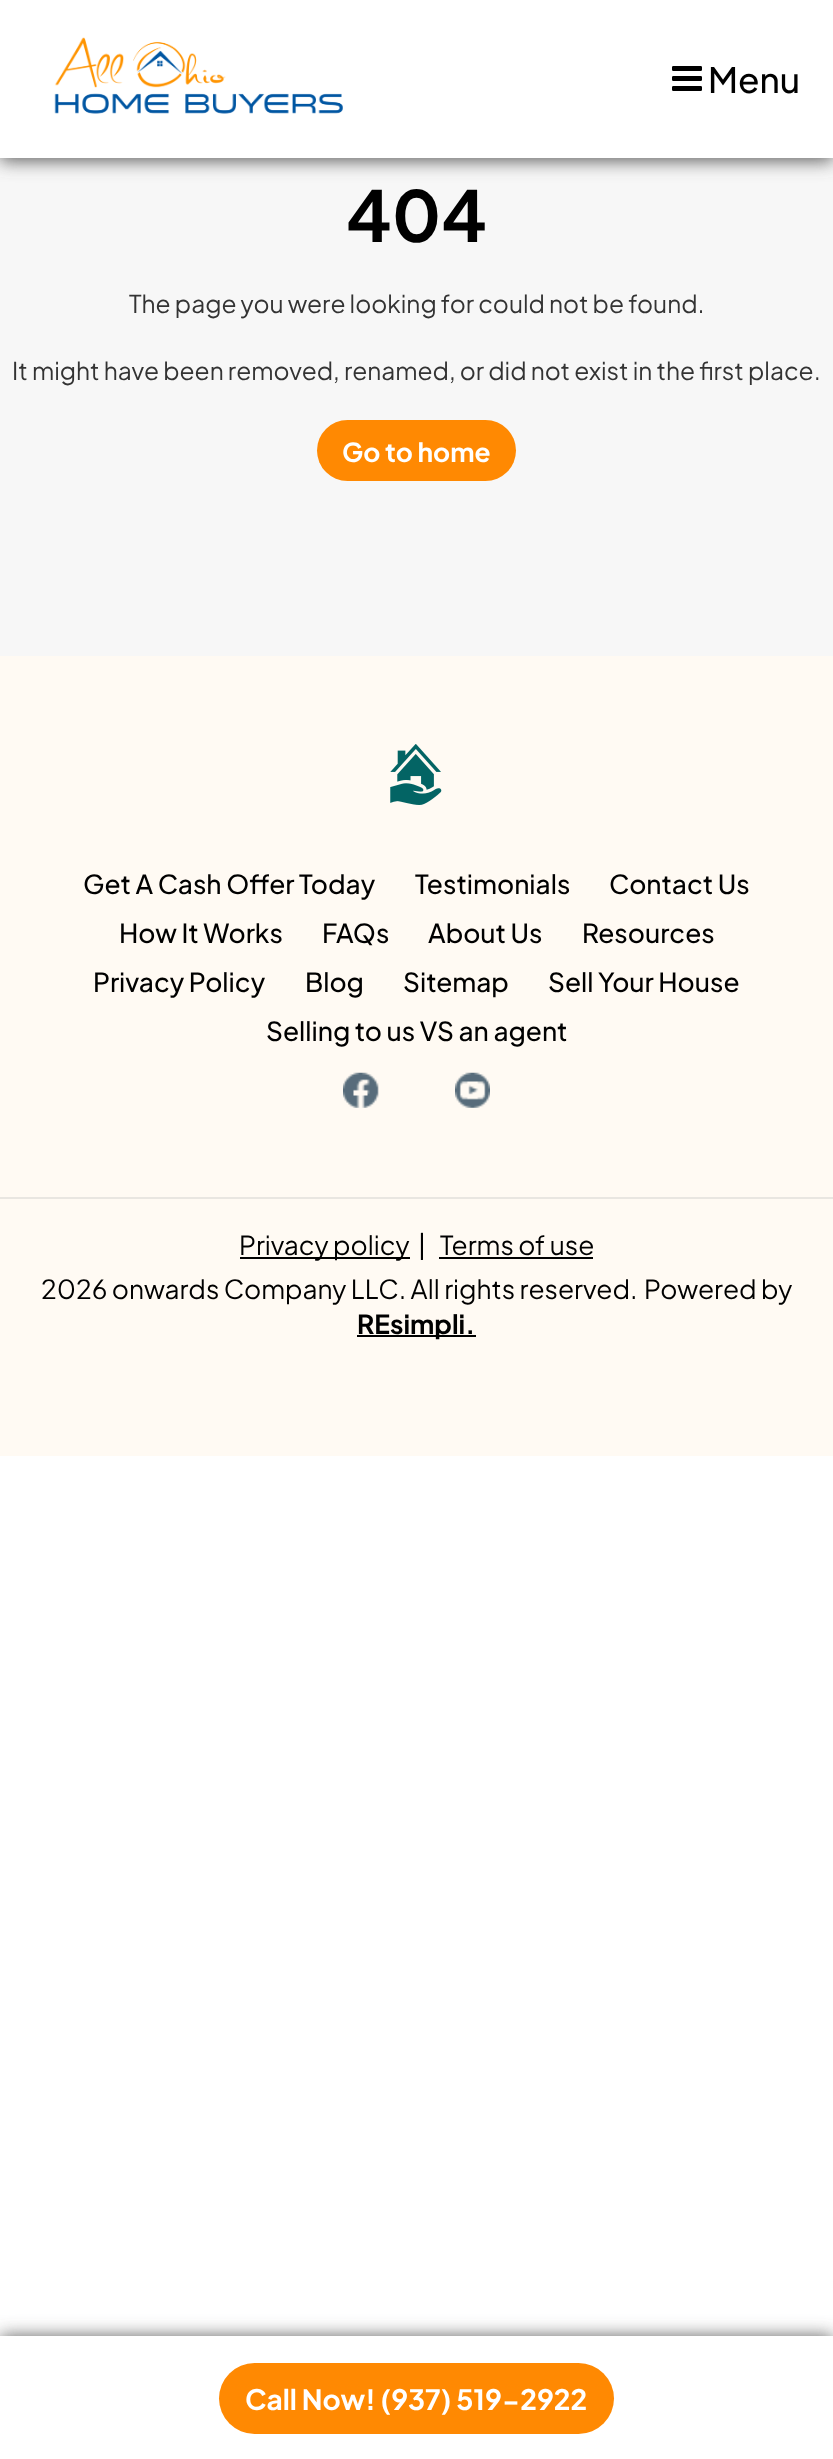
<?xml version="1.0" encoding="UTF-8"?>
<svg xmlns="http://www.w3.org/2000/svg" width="833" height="2459">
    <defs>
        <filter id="blur1" x="-50%" y="-200%" width="200%" height="500%"><feGaussianBlur stdDeviation="9"/></filter>
    </defs>
    <rect width="100%" height="100%" fill="#FFFFFF"/>
    <rect x="0" y="158" width="833" height="498" fill="#F7F7F7"/>
    <rect x="0" y="4" width="833" height="157" fill="#5E5E5E" filter="url(#blur1)"/>
    <rect x="0" y="0" width="833" height="158" fill="#FFFFFF"/>
    <image x="54" y="37" width="289" height="77" href="img_01.png"/>
    <image x="672" y="66" width="30" height="25" href="img_02.png"/>
    <text x="708" y="93" font-family="Plus Jakarta Sans" font-size="35" font-weight="500" fill="#000000">Menu</text>
    <rect x="0" y="2336" width="833" height="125" fill="#5E5E5E" filter="url(#blur1)"/>
    <rect x="0" y="2336" width="833" height="123" fill="#FFFFFF"/>
    <rect x="219" y="2363" width="395" height="71" rx="35.5" fill="#FF8902"/>
    <text x="245" y="2410" font-family="Plus Jakarta Sans" font-size="28" font-weight="700" fill="#FFFFFF">Call Now! (937) 519-2922</text>
    <text x="346" y="242" font-family="Plus Jakarta Sans" font-size="70" font-weight="700" fill="#000000">404</text>
    <text x="129" y="313" font-family="Plus Jakarta Sans" font-size="24.5" fill="#333333">The page you were looking for could not be found.</text>
    <text x="12" y="380" font-family="Plus Jakarta Sans" font-size="24.5" fill="#333333">It might have been removed, renamed, or did not exist in the first place.</text>
    <rect x="317" y="420" width="199" height="61" rx="30.5" fill="#FF8902"/>
    <text x="342" y="462" font-family="Plus Jakarta Sans" font-size="26.25" font-weight="700" fill="#FFFFFF">Go to home</text>
    <rect x="0" y="656" width="833" height="541" fill="#FFFAF3"/>
    <image x="390" y="744" width="52" height="61" href="img_03.png"/>
    <text x="83" y="894" font-family="Plus Jakarta Sans" font-size="26.25" font-weight="500" fill="#000000">Get A Cash Offer Today</text>
    <text x="415" y="894" font-family="Plus Jakarta Sans" font-size="26.25" font-weight="500" fill="#000000">Testimonials</text>
    <text x="609" y="894" font-family="Plus Jakarta Sans" font-size="26.25" font-weight="500" fill="#000000">Contact Us</text>
    <text x="119" y="943" font-family="Plus Jakarta Sans" font-size="26.25" font-weight="500" fill="#000000">How It Works</text>
    <text x="322" y="943" font-family="Plus Jakarta Sans" font-size="26.25" font-weight="500" fill="#000000">FAQs</text>
    <text x="428" y="943" font-family="Plus Jakarta Sans" font-size="26.25" font-weight="500" fill="#000000">About Us</text>
    <text x="582" y="943" font-family="Plus Jakarta Sans" font-size="26.25" font-weight="500" fill="#000000">Resources</text>
    <text x="93" y="992" font-family="Plus Jakarta Sans" font-size="26.25" font-weight="500" fill="#000000">Privacy Policy</text>
    <text x="305" y="992" font-family="Plus Jakarta Sans" font-size="26.25" font-weight="500" fill="#000000">Blog</text>
    <text x="403" y="992" font-family="Plus Jakarta Sans" font-size="26.25" font-weight="500" fill="#000000">Sitemap</text>
    <text x="548" y="992" font-family="Plus Jakarta Sans" font-size="26.25" font-weight="500" fill="#000000">Sell Your House</text>
    <text x="266" y="1041" font-family="Plus Jakarta Sans" font-size="26.25" font-weight="500" fill="#000000">Selling to us VS an agent</text>
    <image x="343" y="1072" width="36" height="36" href="img_04.png"/>
    <image x="455" y="1072" width="35" height="36" href="img_05.png"/>
    <rect x="0" y="1199" width="833" height="257" fill="#FFFAF3"/>
    <rect x="0" y="1197" width="833" height="2" fill="#E9E6E1"/>
    <rect x="240" y="1257" width="170" height="2" fill="#000000"/>
    <text x="239" y="1255" font-family="Plus Jakarta Sans" font-size="26.25" fill="#000000">Privacy policy</text>
    <text x="418" y="1255" font-family="Plus Jakarta Sans" font-size="26.25" fill="#000000">|</text>
    <text x="440" y="1255" font-family="Plus Jakarta Sans" font-size="26.25" fill="#000000">Terms of use</text>
    <rect x="439" y="1257" width="154" height="2" fill="#000000"/>
    <text x="41" y="1299" font-family="Plus Jakarta Sans" font-size="26.25" fill="#000000">2026 onwards Company LLC. All rights reserved.</text>
    <text x="644" y="1299" font-family="Plus Jakarta Sans" font-size="26.25" fill="#000000">Powered by</text>
    <rect x="357" y="1335" width="119" height="2" fill="#000000"/>
    <text x="357" y="1334" font-family="Plus Jakarta Sans" font-size="26.25" font-weight="700" fill="#000000">REsimpli.</text>
</svg>
